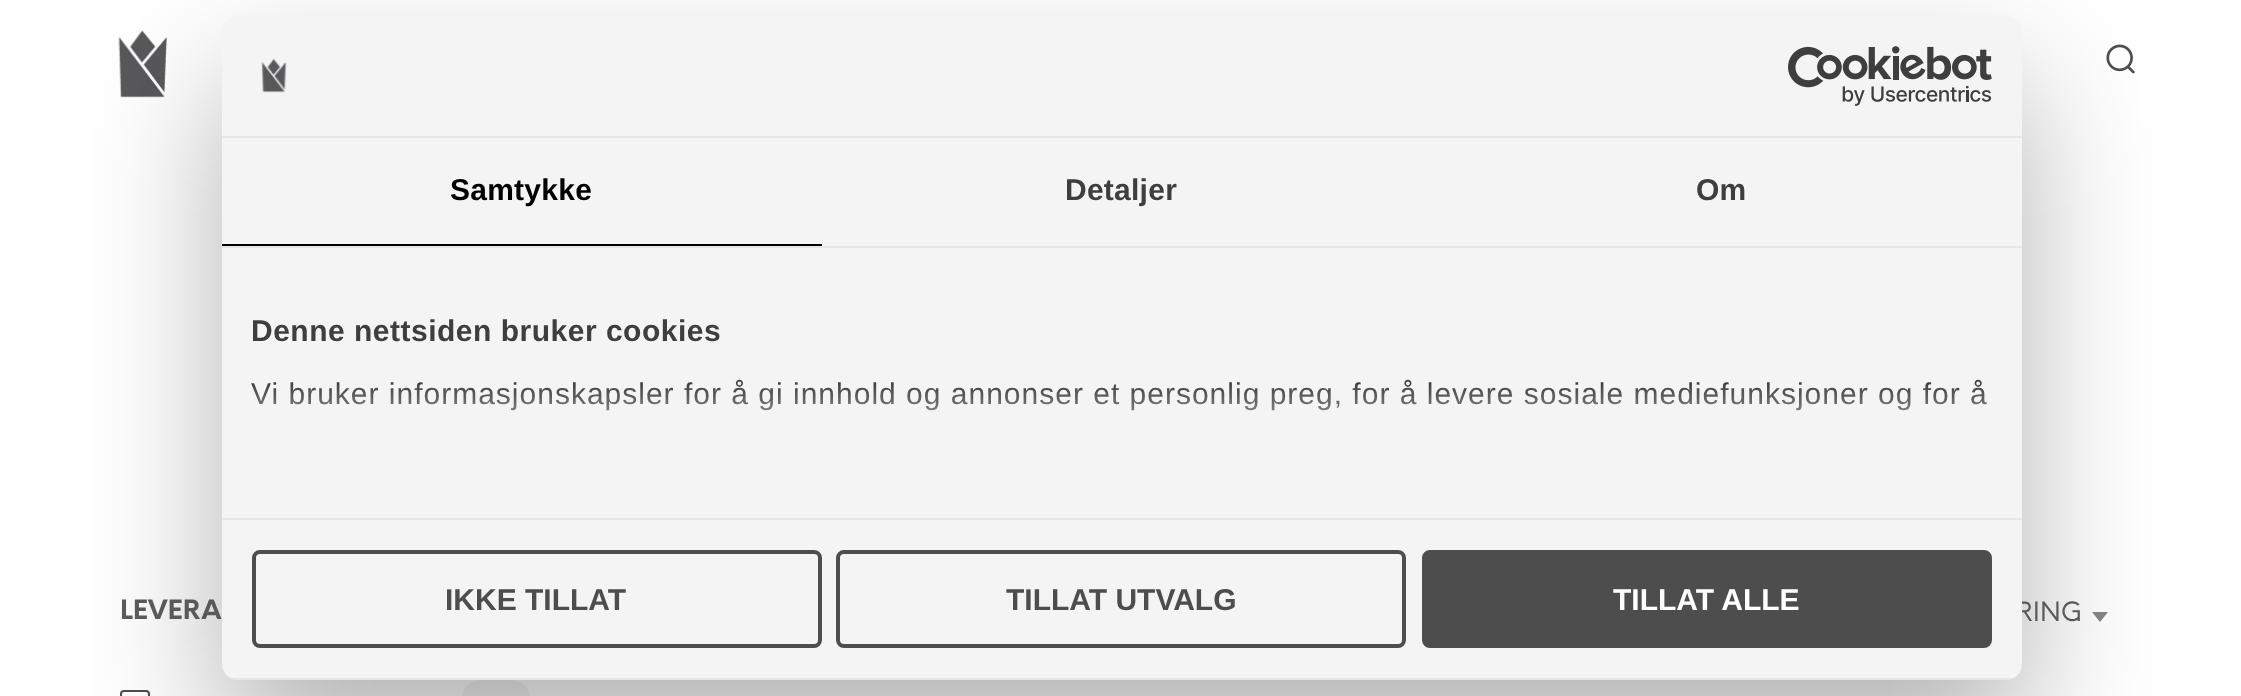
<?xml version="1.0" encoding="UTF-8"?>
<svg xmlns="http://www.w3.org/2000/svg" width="2241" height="696">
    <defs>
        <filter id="blur1" x="-50%" y="-200%" width="200%" height="500%"><feGaussianBlur stdDeviation="68"/></filter>
        <linearGradient id="g1" gradientUnits="userSpaceOnUse" x1="1109" y1="518" x2="1109" y2="382"><stop offset="0" stop-color="#F4F4F4"/><stop offset="0.5" stop-color="#F4F4F4" stop-opacity="0.8"/><stop offset="1" stop-color="#F4F4F4" stop-opacity="0"/></linearGradient>
        <clipPath id="clip1"><rect x="222" y="16" width="1800" height="664" rx="16"/></clipPath>
    </defs>
    <rect width="100%" height="100%" fill="#FFFFFF"/>
    <image x="118" y="30" width="49" height="68" href="img_03.png"/>
    <image x="2106" y="44" width="29" height="30" href="img_04.png"/>
    <rect x="121" y="691" width="28" height="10" rx="3" fill="none" stroke="#4E4E4E" stroke-width="2"/>
    <rect x="462" y="680" width="68" height="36" rx="20" fill="#F4F4F4"/>
    <path d="M 2092 612 H 2108 L 2100 622 Z" fill="#888888"/>
    <rect x="222" y="80" width="1800" height="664" rx="16" fill="#000000" fill-opacity="0.3" filter="url(#blur1)"/>
    <text x="2016" y="621" font-family="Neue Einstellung" font-size="26" fill="#595959">RING</text>
    <rect x="222" y="16" width="1800" height="664" rx="16" fill="#F4F4F4"/>
    <rect x="222" y="136" width="1800" height="2" fill="#E7E7E7"/>
    <image x="261" y="58" width="26" height="35" href="img_01.png"/>
    <image x="1788" y="46" width="204" height="60" href="img_02.png"/>
    <rect x="222" y="246" width="1800" height="2" fill="#E7E7E7"/>
    <rect x="222" y="244" width="600" height="2" fill="#000000"/>
    <text x="450" y="200" font-family="Liberation Sans" font-size="30" font-weight="700" letter-spacing="0.25" fill="#000000">Samtykke</text>
    <text x="1065" y="200" font-family="Liberation Sans" font-size="30" font-weight="700" letter-spacing="0.25" fill="#3E3E3E">Detaljer</text>
    <text x="1696" y="200" font-family="Liberation Sans" font-size="30" font-weight="700" letter-spacing="0.25" fill="#3E3E3E">Om</text>
    <rect x="222" y="518" width="1800" height="2" fill="#E7E7E7"/>
    <text x="251" y="341" font-family="Liberation Sans" font-size="30" font-weight="700" letter-spacing="0.5" fill="#3E3E3E">Denne nettsiden bruker cookies</text>
    <text x="251" y="404" font-family="Liberation Sans" font-size="30" letter-spacing="1" fill="#3E3E3E">Vi bruker informasjonskapsler for å gi innhold og annonser et personlig preg, for å levere sosiale mediefunksjoner og for å</text>
    <rect x="252" y="384" width="1735" height="27" fill="url(#g1)"/>
    <g clip-path="url(#clip1)">
        <rect x="222" y="678" width="1800" height="2" fill="#E7E7E7"/>
    </g>
    <rect x="254" y="552" width="566" height="94" rx="6" fill="none" stroke="#4D4D4D" stroke-width="4"/>
    <text x="445" y="610" font-family="Liberation Sans" font-size="30" font-weight="700" fill="#4D4D4D">IKKE TILLAT</text>
    <rect x="838" y="552" width="566" height="94" rx="6" fill="none" stroke="#4D4D4D" stroke-width="4"/>
    <text x="1006" y="610" font-family="Liberation Sans" font-size="30" font-weight="700" fill="#4D4D4D">TILLAT UTVALG</text>
    <rect x="1424" y="552" width="566" height="94" rx="6" fill="#4D4D4D" stroke="#4D4D4D" stroke-width="4"/>
    <text x="1613" y="610" font-family="Liberation Sans" font-size="30" font-weight="700" fill="#FFFFFF">TILLAT ALLE</text>
    <text x="120" y="619" font-family="Neue Einstellung" font-size="26" font-weight="700" fill="#595959">LEVERA</text>
</svg>
